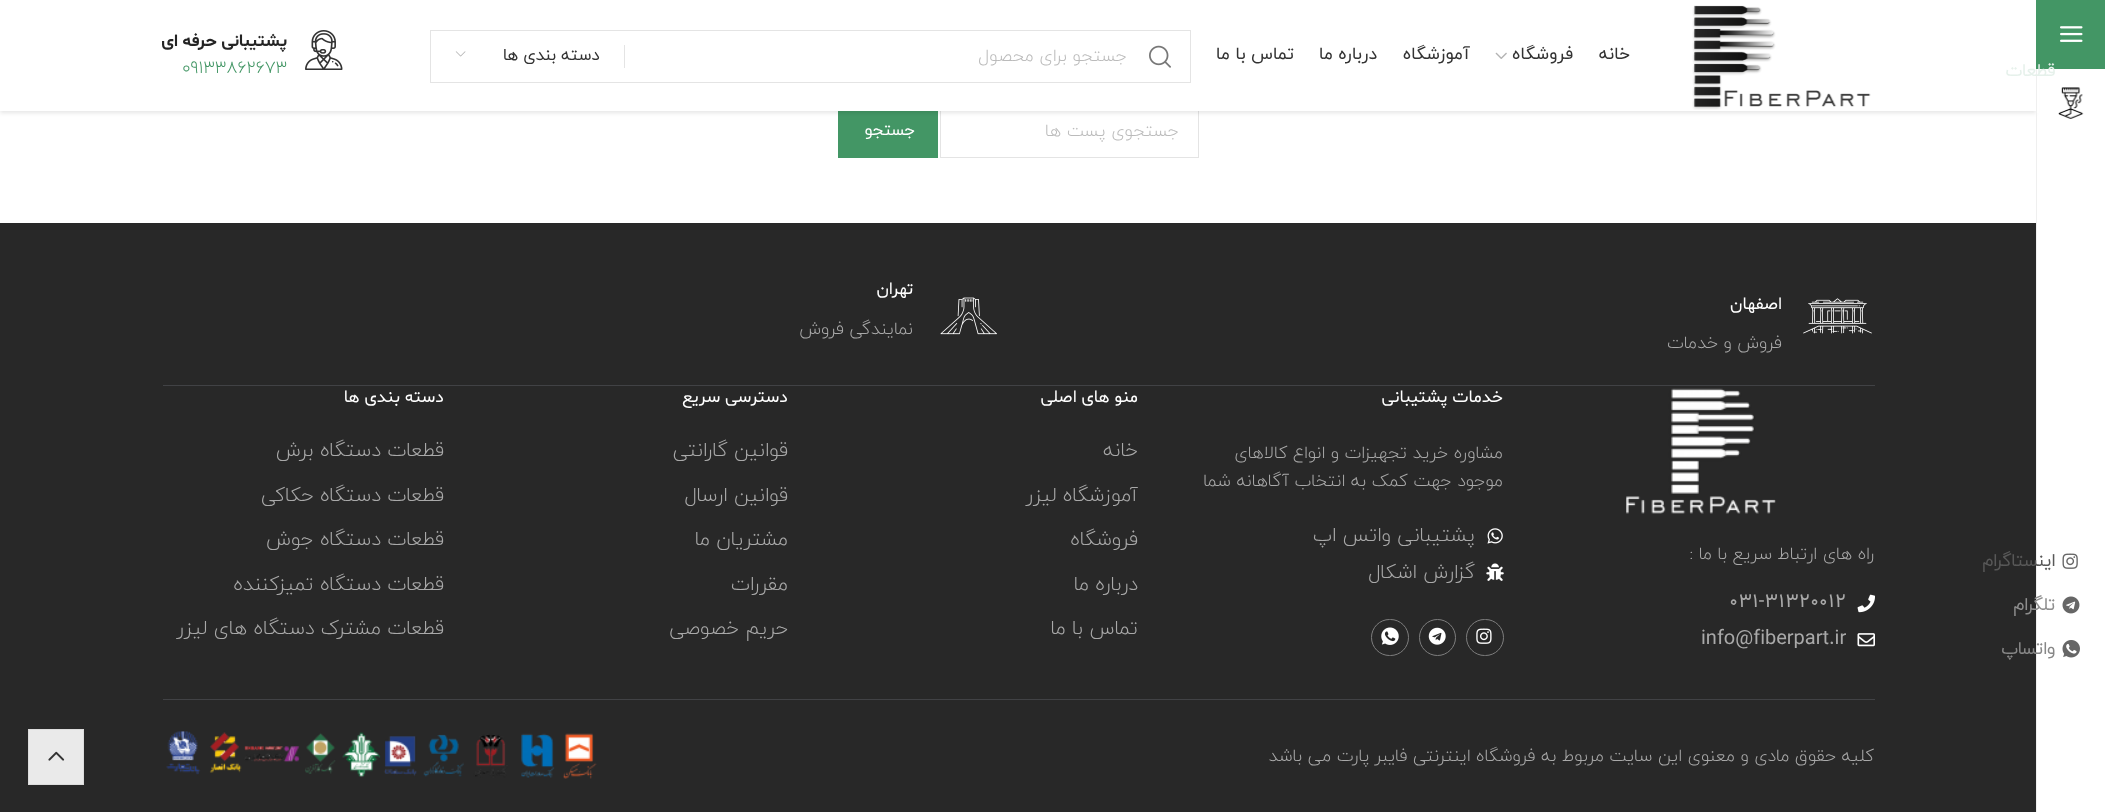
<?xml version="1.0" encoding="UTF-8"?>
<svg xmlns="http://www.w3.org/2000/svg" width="2105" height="812">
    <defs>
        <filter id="blur1" x="-50%" y="-200%" width="200%" height="500%"><feGaussianBlur stdDeviation="2"/></filter>
    </defs>
    <rect width="100%" height="100%" fill="#FFFFFF"/>
    <rect x="940.5" y="105.5" width="258" height="52" fill="none" stroke="#E4E4E4"/>
    <rect x="838" y="111" width="100" height="47" fill="#439665"/>
    <rect x="0" y="1" width="2036" height="112" fill="#000000" fill-opacity="0.1" filter="url(#blur1)"/>
    <rect x="2037" y="69" width="2" height="44" fill="#FFFFFF"/>
    <rect x="2036" y="69" width="1" height="743" fill="#EFEFEF"/>
    <rect x="2036" y="0" width="69" height="69" fill="#439665"/>
    <image x="2060" y="26" width="23" height="16" href="img_01.png"/>
    <rect x="0" y="0" width="2036" height="111" fill="#FFFFFF"/>
    <text x="2055" y="76" font-family="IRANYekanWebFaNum" font-size="17.5" font-weight="700" direction="rtl" fill="#E6F1EB">قطعات</text>
    <image x="2058" y="87" width="26" height="32" href="img_02.png"/>
    <image x="2062" y="553" width="16" height="16" href="img_03.png"/>
    <rect x="0" y="223" width="2036" height="589" fill="#282828"/>
    <text x="2055" y="566" font-family="IRANYekanWebFaNum" font-size="17.5" font-weight="700" direction="rtl" fill="#585858">اینستاگرام</text>
    <image x="2062" y="596" width="18" height="18" href="img_04.png"/>
    <text x="2055" y="610" font-family="IRANYekanWebFaNum" font-size="17.5" font-weight="700" direction="rtl" fill="#8E8E8E">تلگرام</text>
    <image x="2062" y="640" width="18" height="18" href="img_05.png"/>
    <text x="2055" y="654" font-family="IRANYekanWebFaNum" font-size="17.5" font-weight="700" direction="rtl" fill="#878787">واتساپ</text>
    <text x="2164" y="696" transform="rotate(90 2164 696)" font-family="IRANYekanWebFaNum" font-size="20" font-weight="700" direction="rtl" fill="#333333">دنبال کردن :</text>
    <image x="1692" y="5" width="179" height="105" href="img_06.png"/>
    <text x="1630" y="59" font-family="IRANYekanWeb" font-size="17.5" direction="rtl" fill="#333333">خانه</text>
    <text x="1573" y="59" font-family="IRANYekanWeb" font-size="17.5" direction="rtl" fill="#333333">فروشگاه</text>
    <image x="1495" y="52" width="12" height="7" href="img_07.png"/>
    <text x="1470" y="59" font-family="IRANYekanWeb" font-size="17.5" direction="rtl" fill="#333333">آموزشگاه</text>
    <text x="1377" y="59" font-family="IRANYekanWeb" font-size="17.5" direction="rtl" fill="#333333">درباره ما</text>
    <text x="1294" y="59" font-family="IRANYekanWeb" font-size="17.5" direction="rtl" fill="#333333">تماس با ما</text>
    <rect x="430.5" y="30.5" width="760" height="52" fill="none" stroke="#E4E4E4"/>
    <image x="1149" y="45" width="22" height="23" href="img_08.png"/>
    <text x="1127" y="61" font-family="IRANYekanWebFaNum" font-size="17.5" font-weight="300" direction="rtl" fill="#BBBBBB">جستجو برای محصول</text>
    <rect x="624" y="45" width="1" height="23" fill="#E4E4E4"/>
    <text x="599" y="60" font-family="IRANYekanWebFaNum" font-size="16.25" font-weight="700" direction="rtl" fill="#333333">دسته بندی ها</text>
    <image x="455" y="51" width="11" height="6" href="img_09.png"/>
    <image x="305" y="30" width="38" height="40" href="img_10.png"/>
    <text x="287" y="46" font-family="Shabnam" font-size="17.5" font-weight="700" direction="rtl" fill="#242424">پشتیبانی حرفه ای</text>
    <text x="182" y="73" font-family="IRANYekanWebFaNum" font-size="17.5" font-weight="300" fill="#439665">09133862673</text>
    <text x="1179" y="136" font-family="IRANYekanWebFaNum" font-size="17.5" font-weight="300" direction="rtl" fill="#BBBBBB">جستجوی پست ها</text>
    <text x="915" y="135" font-family="IRANYekanWebFaNum" font-size="16.25" font-weight="700" letter-spacing="0.5" direction="rtl" fill="#FFFFFF">جستجو</text>
    <rect x="163" y="385" width="1712" height="1" fill="#414245"/>
    <image x="1803" y="298" width="69" height="36" href="img_11.png"/>
    <text x="1782" y="309" font-family="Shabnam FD" font-size="17.5" direction="rtl" fill="#FFFFFF">اصفهان</text>
    <text x="1782" y="348" font-family="IRANYekanWebFaNum" font-size="17.5" font-weight="300" direction="rtl" fill="#A9A9A9">فروش و خدمات</text>
    <image x="940" y="297" width="57" height="38" href="img_12.png"/>
    <text x="913" y="294" font-family="Shabnam FD" font-size="17.5" direction="rtl" fill="#FFFFFF">تهران</text>
    <text x="913" y="334" font-family="IRANYekanWebFaNum" font-size="17.5" font-weight="300" direction="rtl" fill="#A9A9A9">نمایندگی فروش</text>
    <rect x="163" y="699" width="1712" height="1" fill="#414245"/>
    <image x="1626" y="388" width="150" height="126" href="img_13.png"/>
    <text x="1874" y="559" font-family="IRANYekanWebFaNum" font-size="17.5" font-weight="300" direction="rtl" fill="#A9A9A9">راه های ارتباط سریع با ما :</text>
    <image x="1857" y="594" width="18" height="19" href="img_14.png"/>
    <text x="1729" y="607" font-family="Shabnam FD" font-size="20" fill="#A9A9A9">031-۳۱۳۲۰۰۱۲</text>
    <image x="1857" y="633" width="18" height="14" href="img_15.png"/>
    <text x="1701" y="644" font-family="Shabnam FD" font-size="20" fill="#A9A9A9">info@fiberpart.ir</text>
    <text x="1503" y="402" font-family="Shabnam FD" font-size="17.5" direction="rtl" fill="#FFFFFF">خدمات پشتیبانی</text>
    <text font-family="IRANYekanWebFaNum" font-size="17.5" font-weight="300" direction="rtl" fill="#A9A9A9">
        <tspan x="1503" y="458">مشاوره خرید تجهیزات و انواع کالاهای</tspan>
        <tspan x="1503" y="486">موجود جهت کمک به انتخاب آگاهانه شما</tspan>
    </text>
    <image x="1487" y="528" width="16" height="16" href="img_16.png"/>
    <text x="1475" y="541" font-family="IRANYekanWebFaNum" font-size="20" font-weight="300" direction="rtl" fill="#A9A9A9">پشتیبانی واتس اپ</text>
    <image x="1486" y="563" width="18" height="18" href="img_17.png"/>
    <text x="1475" y="578" font-family="IRANYekanWebFaNum" font-size="20" font-weight="300" direction="rtl" fill="#A9A9A9">گزارش اشکال</text>
    <rect x="1466.5" y="619.5" width="37" height="36" rx="18" fill="none" stroke="#7E7E7E"/>
    <image x="1476" y="628" width="16" height="16" href="img_18.png"/>
    <circle cx="1437.5" cy="637.5" r="18" fill="none" stroke="#7E7E7E"/>
    <image x="1428" y="627" width="18" height="18" href="img_19.png"/>
    <rect x="1371.5" y="619.5" width="37" height="36" rx="18" fill="none" stroke="#7E7E7E"/>
    <image x="1381" y="627" width="18" height="18" href="img_20.png"/>
    <text x="1138" y="402" font-family="Shabnam FD" font-size="17.5" direction="rtl" fill="#FFFFFF">منو های اصلی</text>
    <text x="1138" y="456" font-family="IRANYekanWebFaNum" font-size="20" font-weight="300" direction="rtl" fill="#A9A9A9">خانه</text>
    <text x="1138" y="501" font-family="IRANYekanWebFaNum" font-size="20" font-weight="300" direction="rtl" fill="#A9A9A9">آموزشگاه لیزر</text>
    <text x="1138" y="545" font-family="IRANYekanWebFaNum" font-size="20" font-weight="300" direction="rtl" fill="#A9A9A9">فروشگاه</text>
    <text x="1138" y="590" font-family="IRANYekanWebFaNum" font-size="20" font-weight="300" direction="rtl" fill="#A9A9A9">درباره ما</text>
    <text x="1138" y="634" font-family="IRANYekanWebFaNum" font-size="20" font-weight="300" direction="rtl" fill="#A9A9A9">تماس با ما</text>
    <text x="788" y="402" font-family="Shabnam FD" font-size="17.5" direction="rtl" fill="#FFFFFF">دسترسی سریع</text>
    <text x="788" y="456" font-family="IRANYekanWebFaNum" font-size="20" font-weight="300" direction="rtl" fill="#A9A9A9">قوانین گارانتی</text>
    <text x="788" y="501" font-family="IRANYekanWebFaNum" font-size="20" font-weight="300" direction="rtl" fill="#A9A9A9">قوانین ارسال</text>
    <text x="788" y="545" font-family="IRANYekanWebFaNum" font-size="20" font-weight="300" direction="rtl" fill="#A9A9A9">مشتریان ما</text>
    <text x="788" y="590" font-family="IRANYekanWebFaNum" font-size="20" font-weight="300" direction="rtl" fill="#A9A9A9">مقررات</text>
    <text x="788" y="634" font-family="IRANYekanWebFaNum" font-size="20" font-weight="300" direction="rtl" fill="#A9A9A9">حریم خصوصی</text>
    <text x="444" y="402" font-family="Shabnam FD" font-size="17.5" direction="rtl" fill="#FFFFFF">دسته بندی ها</text>
    <text x="444" y="456" font-family="IRANYekanWebFaNum" font-size="20" font-weight="300" direction="rtl" fill="#A9A9A9">قطعات دستگاه برش</text>
    <text x="444" y="501" font-family="IRANYekanWebFaNum" font-size="20" font-weight="300" direction="rtl" fill="#A9A9A9">قطعات دستگاه حکاکی</text>
    <text x="444" y="545" font-family="IRANYekanWebFaNum" font-size="20" font-weight="300" direction="rtl" fill="#A9A9A9">قطعات دستگاه جوش</text>
    <text x="444" y="590" font-family="IRANYekanWebFaNum" font-size="20" font-weight="300" direction="rtl" fill="#A9A9A9">قطعات دستگاه تمیزکننده</text>
    <text x="444" y="634" font-family="IRANYekanWebFaNum" font-size="20" font-weight="300" direction="rtl" fill="#A9A9A9">قطعات مشترک دستگاه های لیزر</text>
    <text x="1874" y="761" font-family="IRANYekanWebFaNum" font-size="17.5" font-weight="300" direction="rtl" fill="#A9A9A9">کلیه حقوق مادی و معنوی این سایت مربوط به فروشگاه اینترنتی فایبر پارت می باشد</text>
    <image x="166" y="731" width="431" height="48" href="img_21.png"/>
    <rect x="28.5" y="729.5" width="55" height="55" fill="#EAEAEA" stroke="#DCDCDC"/>
    <image x="48" y="751" width="17" height="10" href="img_22.png"/>
</svg>
